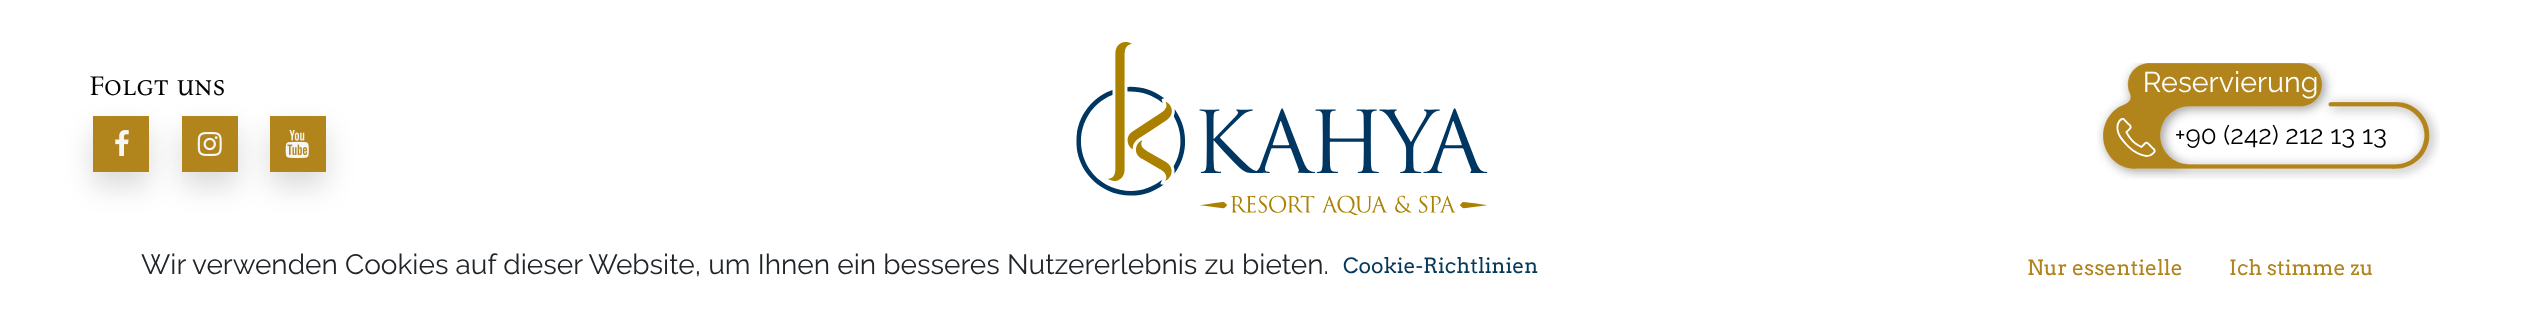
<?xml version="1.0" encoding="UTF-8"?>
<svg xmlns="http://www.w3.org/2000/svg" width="2538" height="319">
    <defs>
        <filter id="blur1" x="-50%" y="-200%" width="200%" height="500%"><feGaussianBlur stdDeviation="14"/></filter>
    </defs>
    <rect width="100%" height="100%" fill="#FFFFFF"/>
    <text x="89" y="95" font-family="Bona Nova SC" font-size="28" fill="#000000">Folgt uns</text>
    <rect x="93" y="130" width="56" height="56" fill="#000000" fill-opacity="0.15" filter="url(#blur1)"/>
    <rect x="93" y="116" width="56" height="56" fill="#B1841C"/>
    <image x="115" y="130" width="14" height="26" href="img_01.png"/>
    <rect x="182" y="130" width="56" height="56" fill="#000000" fill-opacity="0.15" filter="url(#blur1)"/>
    <rect x="182" y="116" width="56" height="56" fill="#B1841C"/>
    <image x="197" y="132" width="25" height="24" href="img_02.png"/>
    <rect x="270" y="130" width="56" height="56" fill="#000000" fill-opacity="0.15" filter="url(#blur1)"/>
    <rect x="270" y="116" width="56" height="56" fill="#B1841C"/>
    <image x="285" y="130" width="24" height="28" href="img_03.png"/>
    <image x="1076" y="42" width="412" height="173" href="img_04.png"/>
    <image x="2097" y="63" width="343" height="116" href="img_05.png"/>
    <text x="141" y="274" font-family="Raleway" font-size="28" fill="#212529">Wir verwenden Cookies auf dieser Website, um Ihnen ein besseres Nutzererlebnis zu bieten.</text>
    <text x="1343" y="273" font-family="Arvo" font-size="21" fill="#073A5A">Cookie-Richtlinien</text>
    <text x="2027" y="275" font-family="Arvo" font-size="21" fill="#B1841C">Nur essentielle</text>
    <text x="2229" y="275" font-family="Arvo" font-size="21" fill="#B1841C">Ich stimme zu</text>
</svg>
